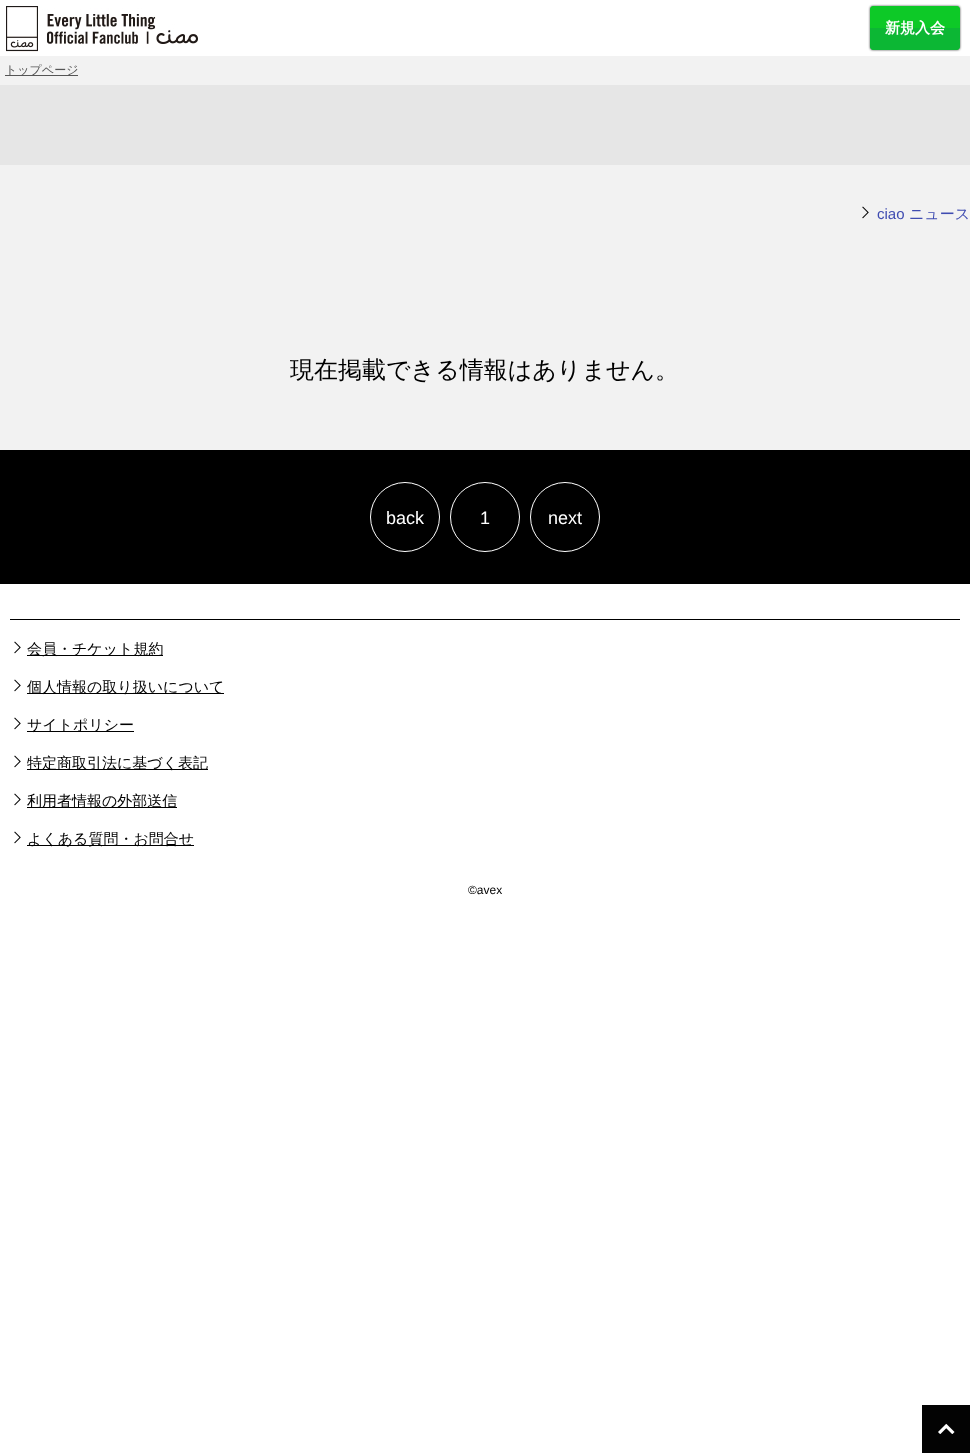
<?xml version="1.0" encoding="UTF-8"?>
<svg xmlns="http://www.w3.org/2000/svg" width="970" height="1453">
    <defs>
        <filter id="blur1" x="-50%" y="-200%" width="200%" height="500%"><feGaussianBlur stdDeviation="1"/></filter>
    </defs>
    <rect width="100%" height="100%" fill="#FFFFFF"/>
    <image x="6" y="6" width="192" height="46" href="img_01.png"/>
    <rect x="870" y="6" width="90" height="44" rx="3" fill="#000000" fill-opacity="0.7" filter="url(#blur1)"/>
    <path d="M 873 6 H 957 C 958.5 6 960 7.5 960 9 V 28 H 870 V 9 C 870 7.5 871.5 6 873 6 Z" fill="#0DC927"/>
    <path d="M 870 28 H 960 V 47 C 960 48.5 958.5 50 957 50 H 873 C 871.5 50 870 48.5 870 47 Z" fill="#0CB734"/>
    <text x="885" y="33" font-family="WenQuanYi Zen Hei" font-size="15" font-weight="700" fill="#FFFFFF">新規入会</text>
    <rect x="0" y="56" width="970" height="29" fill="#F2F2F2"/>
    <rect x="5" y="75" width="73" height="1" fill="#555555"/>
    <text x="5" y="74" font-family="WenQuanYi Zen Hei" font-size="12" font-weight="500" fill="#555555">トップページ</text>
    <rect x="0" y="85" width="970" height="80" fill="#E6E6E6"/>
    <rect x="0" y="165" width="970" height="285" fill="#F2F2F2"/>
    <image x="862" y="206" width="7" height="13" href="img_02.png"/>
    <text x="877" y="219" font-family="Liberation Sans" font-size="15" fill="#3F4CB1">ciao</text>
    <text x="909" y="219" font-family="WenQuanYi Zen Hei" font-size="15" font-weight="500" fill="#3F4CB1">ニュース</text>
    <text x="290" y="378" font-family="WenQuanYi Zen Hei" font-size="24" font-weight="500" fill="#000000">現在掲載できる情報はありません。</text>
    <rect x="0" y="450" width="970" height="134" fill="#000000"/>
    <circle cx="405" cy="517" r="34.5" fill="none" stroke="#FFFFFF"/>
    <text x="386" y="524" font-family="Liberation Sans" font-size="18" fill="#FFFFFF">back</text>
    <circle cx="485" cy="517" r="34.5" fill="none" stroke="#FFFFFF"/>
    <text x="480" y="524" font-family="Liberation Sans" font-size="18" fill="#FFFFFF">1</text>
    <circle cx="565" cy="517" r="34.5" fill="none" stroke="#FFFFFF"/>
    <text x="548" y="524" font-family="Liberation Sans" font-size="18" fill="#FFFFFF">next</text>
    <rect x="10" y="619" width="950" height="1" fill="#000000"/>
    <image x="14" y="641" width="7" height="13" href="img_03.png"/>
    <rect x="27" y="655" width="136" height="1" fill="#000000"/>
    <text x="27" y="654" font-family="WenQuanYi Zen Hei" font-size="15" font-weight="500" fill="#000000">会員・チケット規約</text>
    <image x="14" y="679" width="7" height="13" href="img_03.png"/>
    <rect x="27" y="693" width="197" height="1" fill="#000000"/>
    <text x="27" y="692" font-family="WenQuanYi Zen Hei" font-size="15" font-weight="500" fill="#000000">個人情報の取り扱いについて</text>
    <image x="14" y="717" width="7" height="13" href="img_03.png"/>
    <rect x="27" y="731" width="107" height="1" fill="#000000"/>
    <text x="27" y="730" font-family="WenQuanYi Zen Hei" font-size="15" font-weight="500" fill="#000000">サイトポリシー</text>
    <image x="14" y="755" width="7" height="13" href="img_03.png"/>
    <rect x="27" y="769" width="181" height="1" fill="#000000"/>
    <text x="27" y="768" font-family="WenQuanYi Zen Hei" font-size="15" font-weight="500" fill="#000000">特定商取引法に基づく表記</text>
    <image x="14" y="793" width="7" height="13" href="img_03.png"/>
    <rect x="27" y="807" width="150" height="1" fill="#000000"/>
    <text x="27" y="806" font-family="WenQuanYi Zen Hei" font-size="15" font-weight="500" fill="#000000">利用者情報の外部送信</text>
    <image x="14" y="831" width="7" height="13" href="img_03.png"/>
    <rect x="27" y="845" width="167" height="1" fill="#000000"/>
    <text x="27" y="844" font-family="WenQuanYi Zen Hei" font-size="15" font-weight="500" fill="#000000">よくある質問・お問合せ</text>
    <text x="468" y="894" font-family="Liberation Sans" font-size="12" fill="#000000">©avex</text>
    <rect x="922" y="1405" width="48" height="48" fill="#030303"/>
    <image x="938" y="1423" width="17" height="11" href="img_04.png"/>
    <image x="938" y="1423" width="17" height="11" href="img_05.png"/>
</svg>
